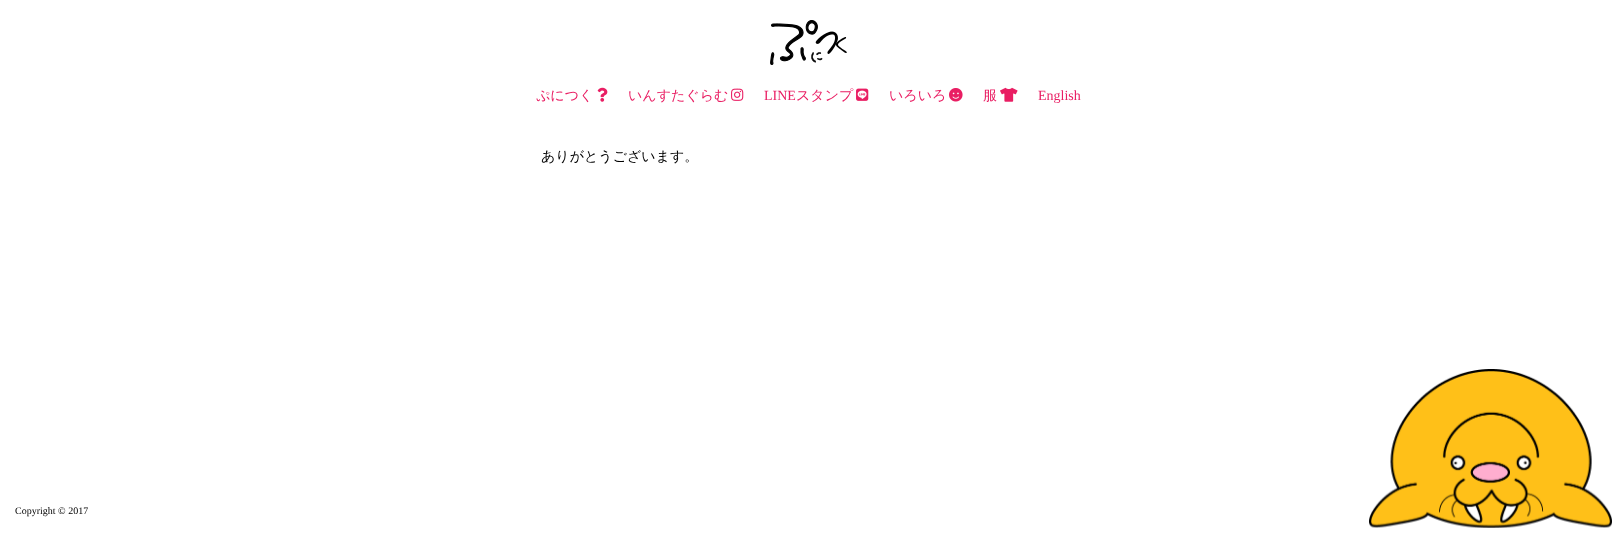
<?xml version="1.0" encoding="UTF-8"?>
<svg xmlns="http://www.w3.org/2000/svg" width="1617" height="533">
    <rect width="100%" height="100%" fill="#FFFFFF"/>
    <image x="770" y="20" width="77" height="45" href="img_01.png"/>
    <text x="536" y="100" font-family="WenQuanYi Zen Hei" font-size="14" font-weight="500" fill="#E91E63">ぷにつく</text>
    <image x="597" y="87" width="11" height="15" href="img_02.png"/>
    <text x="628" y="100" font-family="WenQuanYi Zen Hei" font-size="14" font-weight="500" fill="#E91E63">いんすたぐらむ</text>
    <image x="731" y="88" width="13" height="13" href="img_03.png"/>
    <text x="764" y="100" font-family="Liberation Serif" font-size="14" fill="#E91E63">LINE</text>
    <text x="796" y="100" font-family="WenQuanYi Zen Hei" font-size="14" font-weight="500" fill="#E91E63">スタンプ</text>
    <image x="856" y="88" width="13" height="13" href="img_04.png"/>
    <text x="889" y="100" font-family="WenQuanYi Zen Hei" font-size="14" font-weight="500" fill="#E91E63">いろいろ</text>
    <image x="949" y="88" width="14" height="14" href="img_05.png"/>
    <text x="983" y="100" font-family="WenQuanYi Zen Hei" font-size="14" font-weight="500" fill="#E91E63">服</text>
    <image x="1000" y="87" width="18" height="15" href="img_06.png"/>
    <text x="1038" y="100" font-family="Liberation Serif" font-size="14" fill="#E91E63">English</text>
    <text x="541" y="161" font-family="WenQuanYi Zen Hei" font-size="14" font-weight="500" fill="#000000">ありがとうございます。</text>
    <text x="15" y="514" font-family="Liberation Serif" font-size="10" fill="#000000">Copyright © 2017</text>
    <image x="1369" y="369" width="243" height="159" href="img_07.png"/>
</svg>
